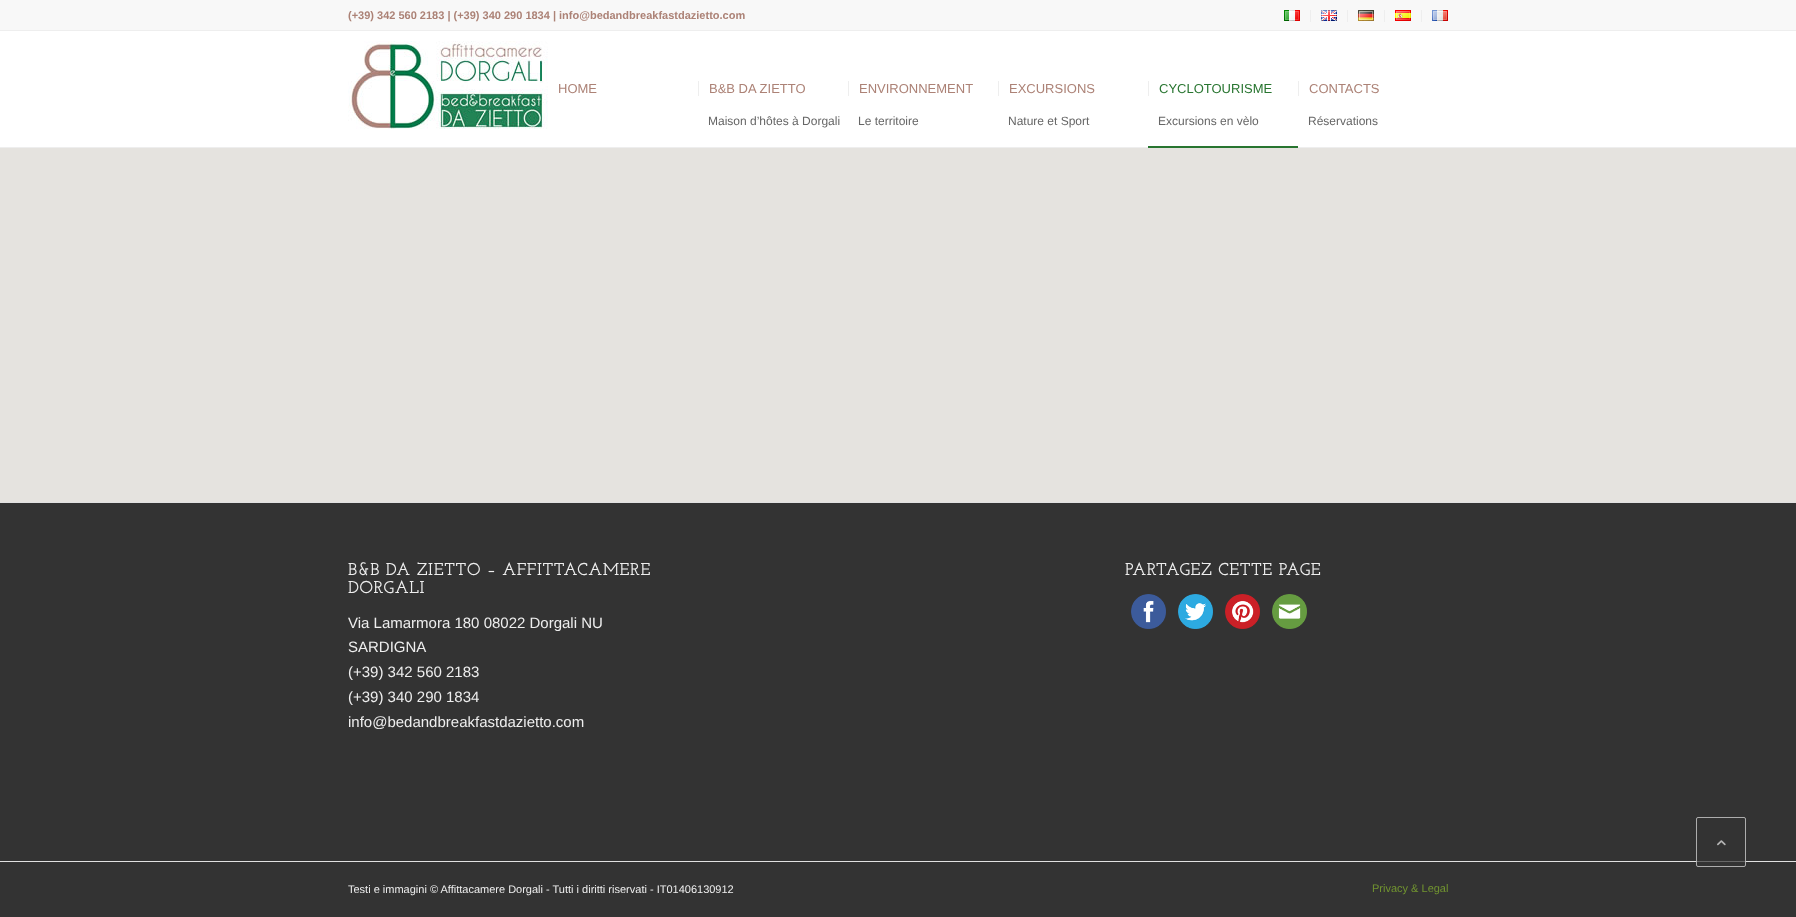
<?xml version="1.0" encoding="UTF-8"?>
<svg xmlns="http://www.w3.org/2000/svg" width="1796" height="917">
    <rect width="100%" height="100%" fill="#E5E3DF"/>
    <rect x="0" y="31" width="1796" height="116" fill="#FFFFFF"/>
    <rect x="0" y="0" width="1796" height="30" fill="#F8F8F8"/>
    <rect x="0" y="30" width="1796" height="1" fill="#EEEEEE"/>
    <text x="348" y="19" font-family="Liberation Sans" font-size="11" font-weight="700" fill="#AC8276">(+39) 342 560 2183 | (+39) 340 290 1834 | info@bedandbreakfastdazietto.com</text>
    <rect x="1310" y="10" width="1" height="12" fill="#EEEEEE"/>
    <image x="1284" y="10" width="16" height="11" href="img_01.png"/>
    <rect x="1347" y="10" width="1" height="12" fill="#EEEEEE"/>
    <image x="1321" y="10" width="16" height="11" href="img_02.png"/>
    <rect x="1384" y="10" width="1" height="12" fill="#EEEEEE"/>
    <image x="1358" y="10" width="16" height="11" href="img_03.png"/>
    <rect x="1421" y="10" width="1" height="12" fill="#EEEEEE"/>
    <image x="1395" y="10" width="16" height="11" href="img_04.png"/>
    <image x="1432" y="10" width="16" height="11" href="img_05.png"/>
    <rect x="0" y="147" width="1796" height="1" fill="#EEEEEE"/>
    <image x="348" y="41" width="200" height="88" href="img_06.png"/>
    <text x="558" y="93" font-family="Liberation Sans" font-size="13" fill="#AC8276">HOME</text>
    <text x="709" y="93" font-family="Liberation Sans" font-size="13" fill="#AC8276">B&amp;B DA ZIETTO</text>
    <rect x="698" y="81" width="1" height="15" fill="#EEEEEE"/>
    <text x="708" y="125" font-family="Liberation Sans" font-size="12" fill="#666666">Maison d’hôtes à Dorgali</text>
    <text x="859" y="93" font-family="Liberation Sans" font-size="13" fill="#AC8276">ENVIRONNEMENT</text>
    <rect x="848" y="81" width="1" height="15" fill="#EEEEEE"/>
    <text x="858" y="125" font-family="Liberation Sans" font-size="12" fill="#666666">Le territoire</text>
    <text x="1009" y="93" font-family="Liberation Sans" font-size="13" fill="#AC8276">EXCURSIONS</text>
    <rect x="998" y="81" width="1" height="15" fill="#EEEEEE"/>
    <text x="1008" y="125" font-family="Liberation Sans" font-size="12" fill="#666666">Nature et Sport</text>
    <text x="1159" y="93" font-family="Liberation Sans" font-size="13" fill="#287530">CYCLOTOURISME</text>
    <rect x="1148" y="81" width="1" height="15" fill="#EEEEEE"/>
    <rect x="1148" y="146" width="150" height="2" fill="#287530"/>
    <text x="1158" y="125" font-family="Liberation Sans" font-size="12" fill="#666666">Excursions en vèlo</text>
    <text x="1309" y="93" font-family="Liberation Sans" font-size="13" fill="#AC8276">CONTACTS</text>
    <rect x="1298" y="81" width="1" height="15" fill="#EEEEEE"/>
    <text x="1308" y="125" font-family="Liberation Sans" font-size="12" fill="#666666">Réservations</text>
    <rect x="0" y="503" width="1796" height="358" fill="#333333"/>
    <rect x="0" y="502" width="1796" height="1" fill="#E1E1E1"/>
    <text font-family="Josefin Slab" font-size="16.5" font-weight="700" letter-spacing="1" fill="#EEEEEE">
        <tspan x="348" y="575">B&amp;B DA ZIETTO – AFFITTACAMERE</tspan>
        <tspan x="348" y="593">DORGALI</tspan>
    </text>
    <text font-family="Liberation Sans" font-size="15" fill="#EEEEEE">
        <tspan x="348" y="628">Via Lamarmora 180 08022 Dorgali NU</tspan>
        <tspan x="348" y="652">SARDIGNA</tspan>
        <tspan x="348" y="677">(+39) 342 560 2183</tspan>
        <tspan x="348" y="702">(+39) 340 290 1834</tspan>
        <tspan x="348" y="727">info@bedandbreakfastdazietto.com</tspan>
    </text>
    <text x="1125" y="575" font-family="Josefin Slab" font-size="16.5" font-weight="700" letter-spacing="1" fill="#EEEEEE">PARTAGEZ CETTE PAGE</text>
    <image x="1131" y="594" width="35" height="35" href="img_07.png"/>
    <image x="1178" y="594" width="35" height="35" href="img_08.png"/>
    <image x="1225" y="594" width="35" height="35" href="img_09.png"/>
    <image x="1272" y="594" width="35" height="35" href="img_10.png"/>
    <rect x="0" y="862" width="1796" height="55" fill="#333333"/>
    <rect x="0" y="861" width="1796" height="1" fill="#E1E1E1"/>
    <text x="348" y="893" font-family="Liberation Sans" font-size="11" fill="#EEEEEE">Testi e immagini © Affittacamere Dorgali - Tutti i diritti riservati - IT01406130912</text>
    <text x="1372" y="892" font-family="Liberation Sans" font-size="11" fill="#719430">Privacy &amp; Legal</text>
    <rect x="1696" y="817" width="50" height="50" rx="2" fill="#333333" fill-opacity="0.7"/>
    <rect x="1696.5" y="817.5" width="49" height="49" rx="1.5" fill="none" stroke="#E1E1E1" stroke-opacity="0.7"/>
    <image x="1717" y="840" width="9" height="6" href="img_11.png"/>
</svg>
